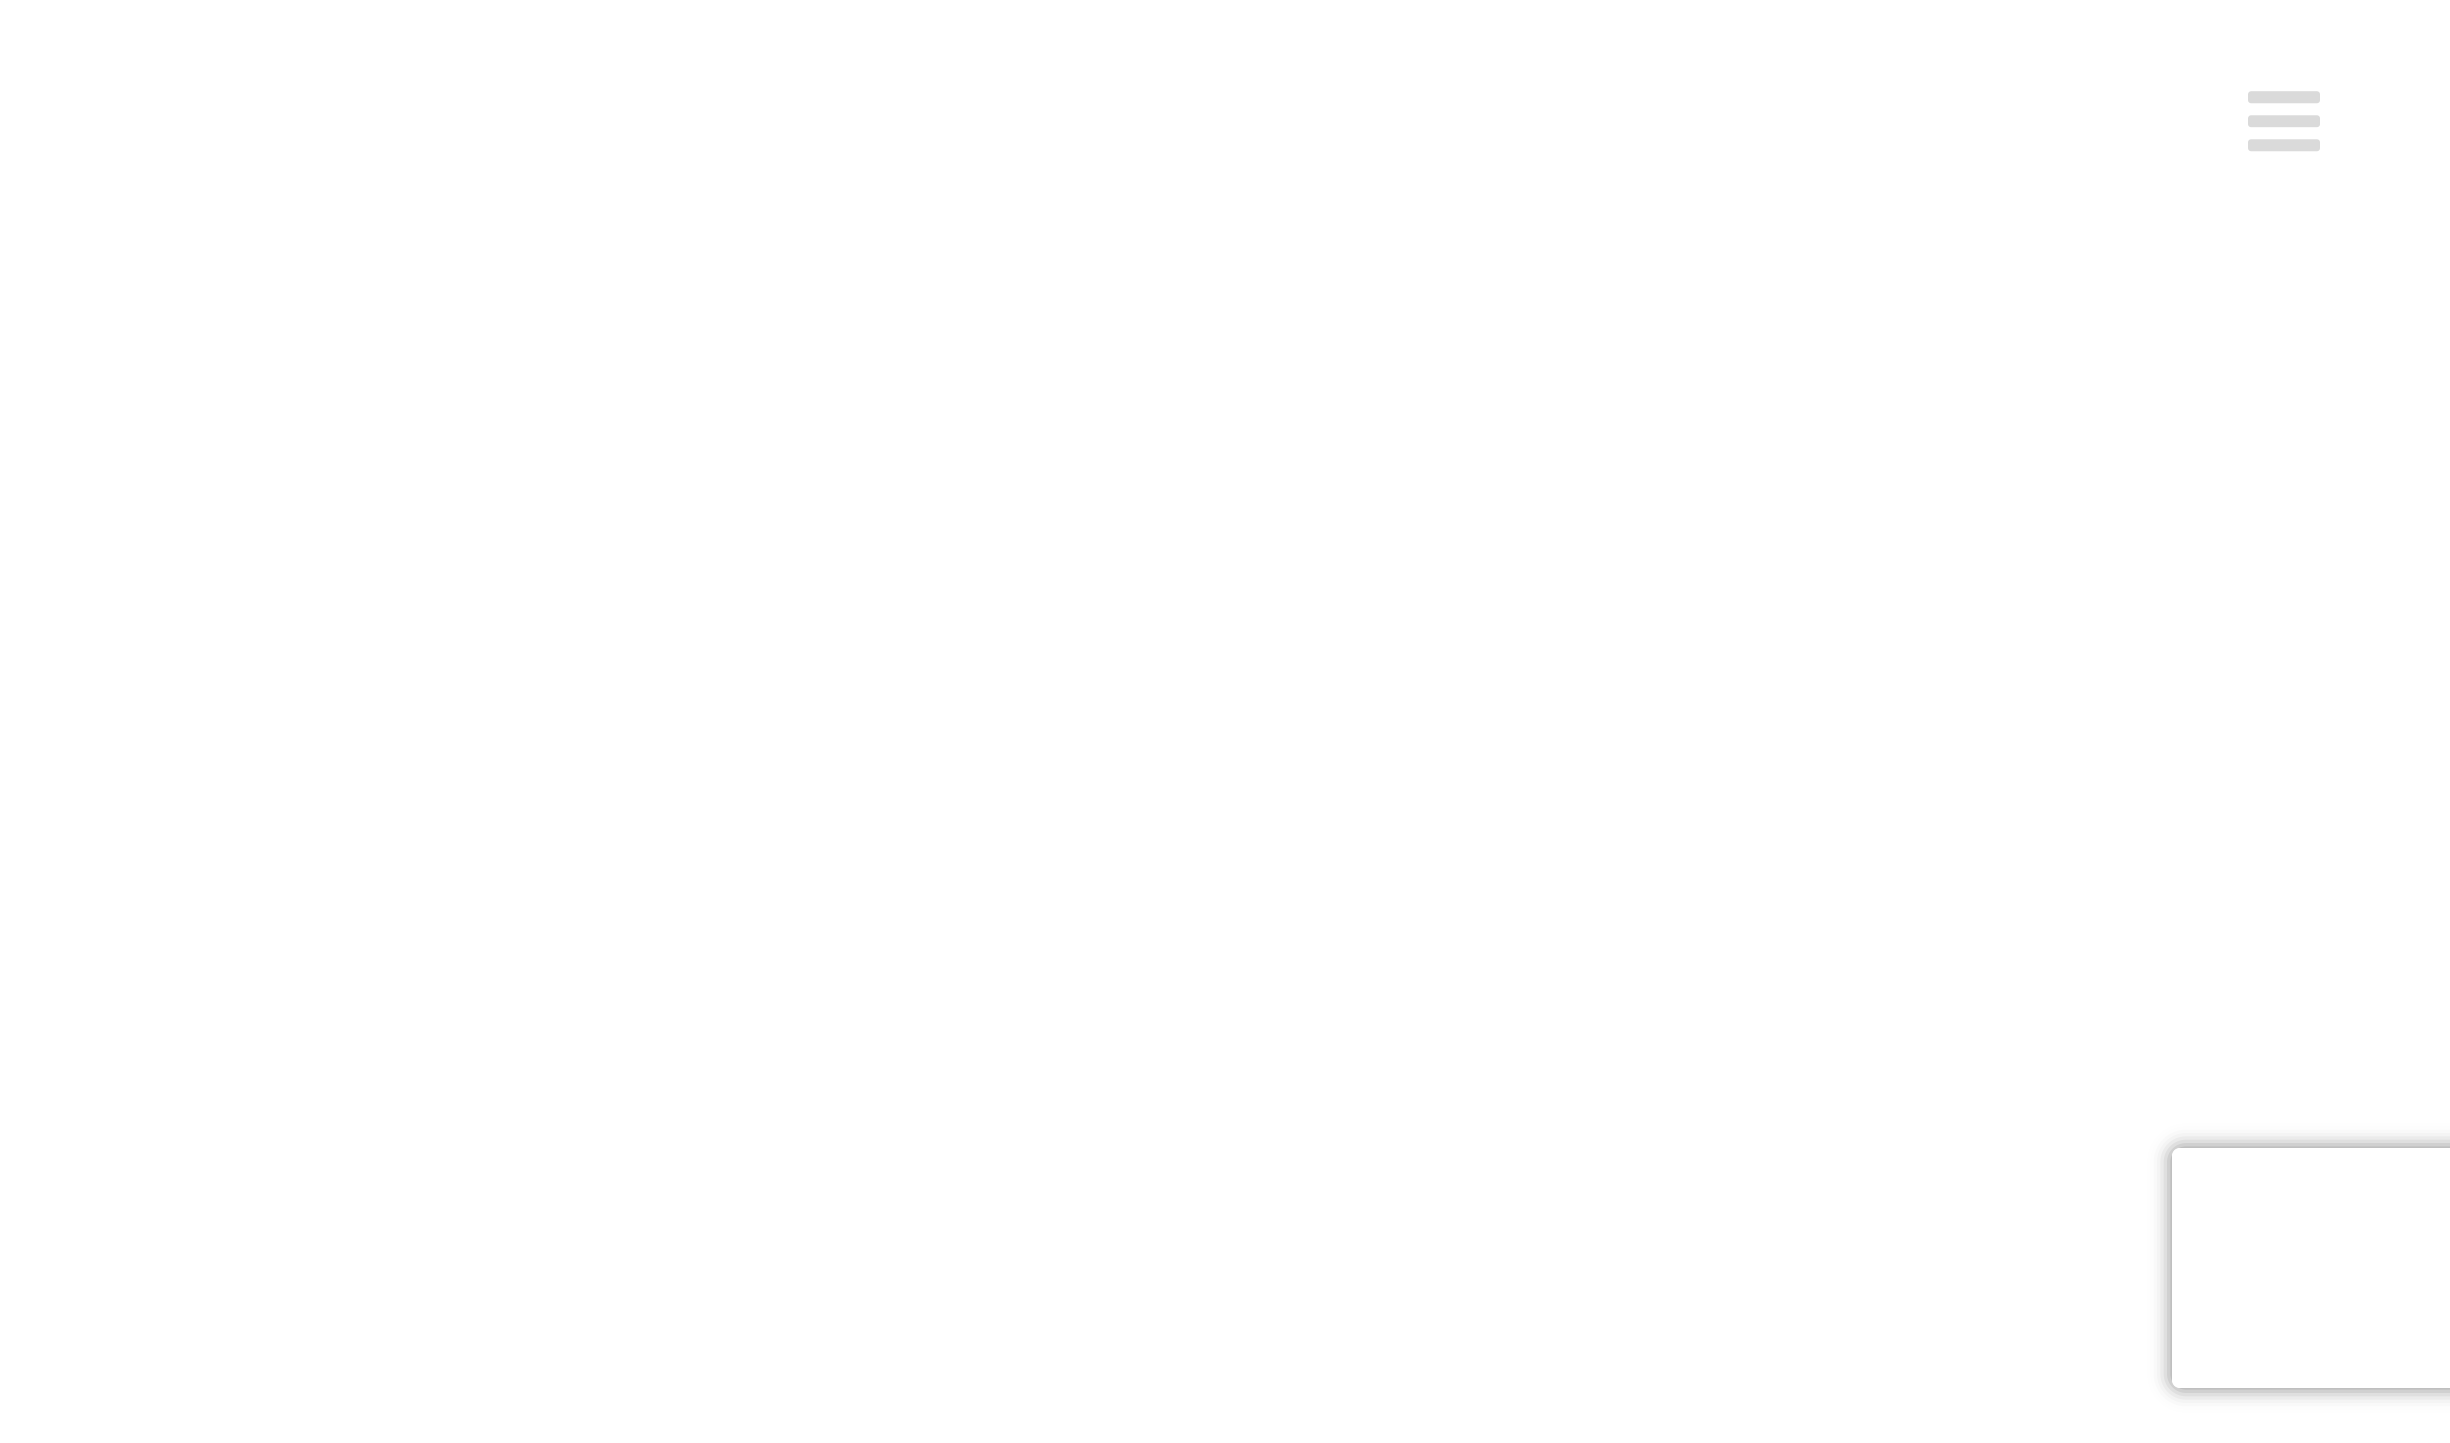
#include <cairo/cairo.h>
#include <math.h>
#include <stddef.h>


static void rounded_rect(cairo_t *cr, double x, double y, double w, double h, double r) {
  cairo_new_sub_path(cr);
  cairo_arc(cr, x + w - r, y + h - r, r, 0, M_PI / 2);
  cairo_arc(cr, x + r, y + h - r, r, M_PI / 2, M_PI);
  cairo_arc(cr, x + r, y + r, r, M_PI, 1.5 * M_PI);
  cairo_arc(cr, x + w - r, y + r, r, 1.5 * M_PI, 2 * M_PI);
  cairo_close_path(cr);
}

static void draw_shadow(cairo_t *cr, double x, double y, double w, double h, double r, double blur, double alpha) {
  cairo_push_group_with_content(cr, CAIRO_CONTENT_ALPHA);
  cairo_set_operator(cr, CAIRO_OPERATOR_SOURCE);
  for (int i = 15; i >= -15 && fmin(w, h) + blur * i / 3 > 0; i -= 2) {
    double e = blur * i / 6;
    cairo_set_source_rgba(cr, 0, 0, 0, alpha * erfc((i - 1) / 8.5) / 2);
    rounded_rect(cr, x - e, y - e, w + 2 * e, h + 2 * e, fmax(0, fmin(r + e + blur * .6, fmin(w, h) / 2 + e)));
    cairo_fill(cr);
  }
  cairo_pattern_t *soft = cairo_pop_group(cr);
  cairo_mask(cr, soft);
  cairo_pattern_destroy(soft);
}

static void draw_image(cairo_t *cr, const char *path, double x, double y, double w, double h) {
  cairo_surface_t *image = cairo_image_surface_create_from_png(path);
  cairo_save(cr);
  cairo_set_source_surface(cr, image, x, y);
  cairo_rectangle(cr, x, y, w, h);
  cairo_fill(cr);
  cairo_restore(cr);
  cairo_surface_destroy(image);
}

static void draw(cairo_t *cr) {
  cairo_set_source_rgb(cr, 1, 1, 1);
  cairo_paint(cr);
  draw_image(cr, "images/1.png", 2248, 91, 72, 61);
  cairo_save(cr);
  cairo_set_fill_rule(cr, CAIRO_FILL_RULE_EVEN_ODD);
  cairo_new_path(cr);
  cairo_move_to(cr, 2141, 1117);
  cairo_line_to(cr, 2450, 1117);
  cairo_line_to(cr, 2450, 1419);
  cairo_line_to(cr, 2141, 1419);
  cairo_close_path(cr);
  cairo_move_to(cr, 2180, 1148);
  cairo_line_to(cr, 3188, 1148);
  cairo_curve_to(cr, 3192.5, 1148, 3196, 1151.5, 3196, 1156);
  cairo_line_to(cr, 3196, 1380);
  cairo_curve_to(cr, 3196, 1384.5, 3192.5, 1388, 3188, 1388);
  cairo_line_to(cr, 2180, 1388);
  cairo_curve_to(cr, 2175.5, 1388, 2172, 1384.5, 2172, 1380);
  cairo_line_to(cr, 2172, 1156);
  cairo_curve_to(cr, 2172, 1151.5, 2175.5, 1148, 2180, 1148);
  cairo_close_path(cr);
  cairo_clip(cr);
  cairo_set_source_rgb(cr, 128 / 255.0, 128 / 255.0, 128 / 255.0);
  draw_shadow(cr, 2172, 1148, 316, 240, 8, 10, 1);
  cairo_restore(cr);
}

int main(void) {
  cairo_surface_t *surface = cairo_image_surface_create(CAIRO_FORMAT_RGB24, 2450, 1443);
  cairo_t *cr = cairo_create(surface);
  cairo_font_options_t *options = cairo_font_options_create();
  cairo_font_options_set_hint_metrics(options, CAIRO_HINT_METRICS_OFF);
  cairo_font_options_set_hint_style(options, CAIRO_HINT_STYLE_NONE);
  cairo_set_font_options(cr, options);
  cairo_set_miter_limit(cr, 4);
  draw(cr);
  cairo_surface_write_to_png(surface, "out.png");
  cairo_font_options_destroy(options);
  cairo_destroy(cr);
  cairo_surface_destroy(surface);
  return 0;
}
